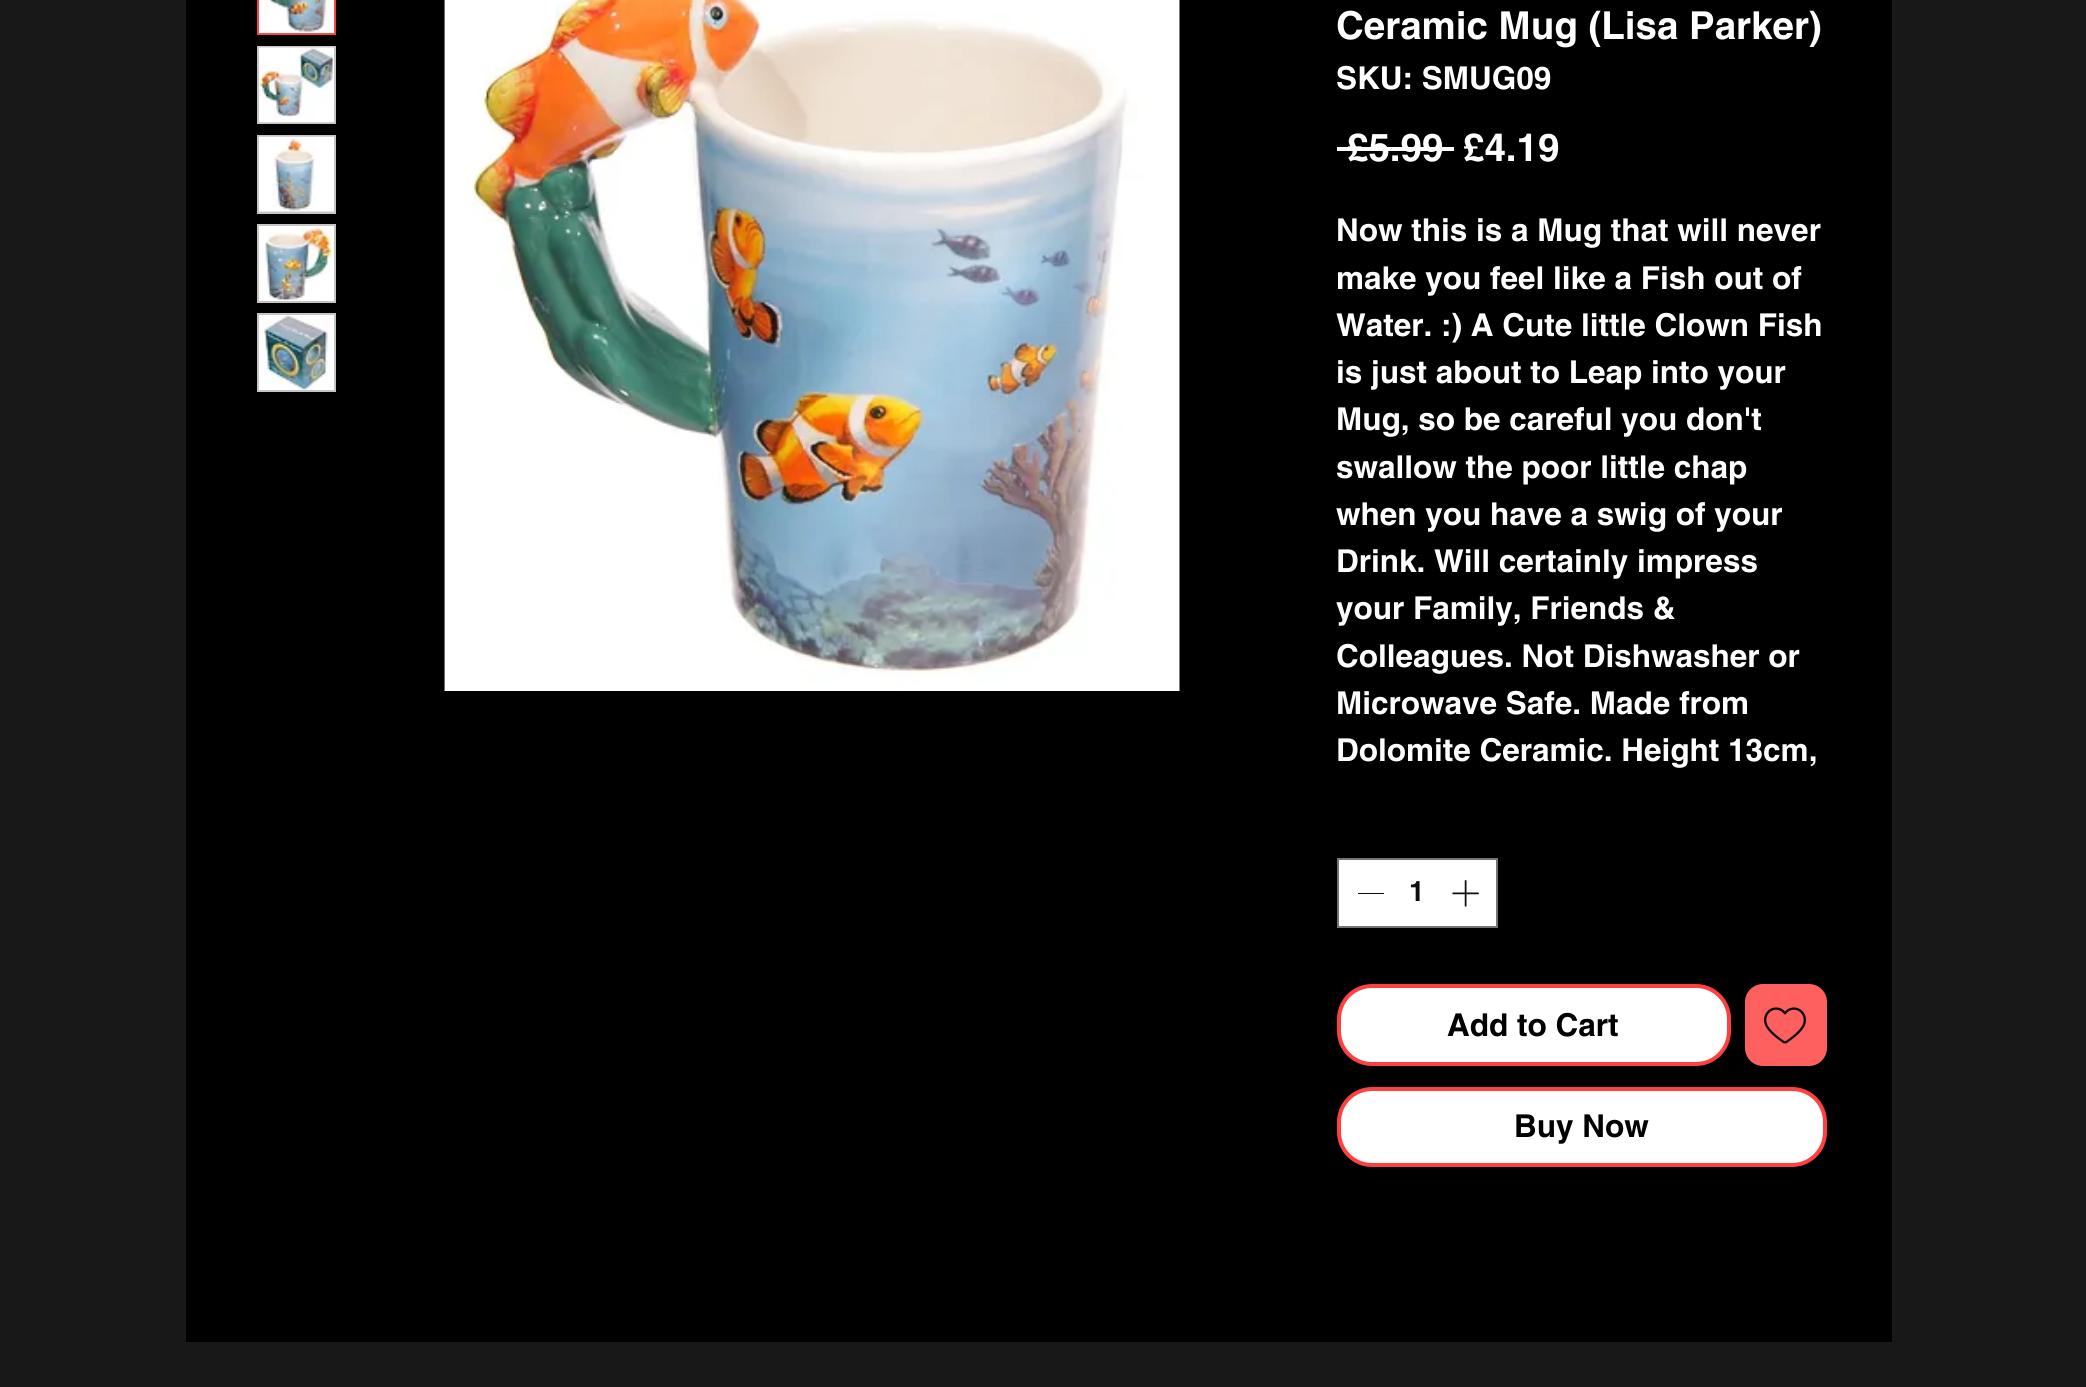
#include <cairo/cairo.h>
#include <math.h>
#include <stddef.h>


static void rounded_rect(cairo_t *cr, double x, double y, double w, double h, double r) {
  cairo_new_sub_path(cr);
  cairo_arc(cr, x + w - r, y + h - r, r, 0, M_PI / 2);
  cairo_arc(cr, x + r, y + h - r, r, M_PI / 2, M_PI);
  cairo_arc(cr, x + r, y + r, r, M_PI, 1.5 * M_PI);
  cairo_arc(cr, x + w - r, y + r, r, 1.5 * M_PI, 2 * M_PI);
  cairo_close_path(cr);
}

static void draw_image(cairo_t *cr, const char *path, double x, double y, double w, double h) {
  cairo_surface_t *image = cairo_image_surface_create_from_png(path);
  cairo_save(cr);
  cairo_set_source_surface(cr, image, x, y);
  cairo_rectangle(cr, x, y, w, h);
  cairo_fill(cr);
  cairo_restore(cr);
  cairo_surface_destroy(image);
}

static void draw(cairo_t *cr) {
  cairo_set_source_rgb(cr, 24 / 255.0, 24 / 255.0, 24 / 255.0);
  cairo_paint(cr);
  cairo_set_source_rgb(cr, 0, 0, 0);
  cairo_rectangle(cr, 186, 0, 1706, 1342);
  cairo_fill(cr);
  cairo_rectangle(cr, 258, -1, 77, 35);
  cairo_set_source_rgb(cr, 1, 64 / 255.0, 64 / 255.0);
  cairo_stroke(cr);
  draw_image(cr, "images/1.png", 259, 0, 76, 34);
  cairo_set_source_rgb(cr, 197 / 255.0, 197 / 255.0, 197 / 255.0);
  cairo_rectangle(cr, 257, 46, 79, 78);
  cairo_fill(cr);
  draw_image(cr, "images/2.png", 259, 47, 75, 76);
  cairo_rectangle(cr, 257, 135, 79, 79);
  cairo_fill(cr);
  draw_image(cr, "images/3.png", 259, 136, 75, 76);
  cairo_rectangle(cr, 257, 224, 79, 79);
  cairo_fill(cr);
  draw_image(cr, "images/4.png", 259, 226, 75, 75);
  cairo_rectangle(cr, 257, 313, 79, 79);
  cairo_fill(cr);
  draw_image(cr, "images/5.png", 259, 315, 75, 75);
  draw_image(cr, "images/6.png", 444, 0, 736, 691);
  cairo_set_source_rgb(cr, 1, 1, 1);
  cairo_rectangle(cr, 1337, 147, 117, 4);
  cairo_fill(cr);
  cairo_rectangle(cr, 1338, 859, 159, 68);
  cairo_fill_preserve(cr);
  cairo_set_source_rgb(cr, 116 / 255.0, 116 / 255.0, 116 / 255.0);
  cairo_stroke(cr);
  cairo_set_source_rgb(cr, 13 / 255.0, 13 / 255.0, 13 / 255.0);
  cairo_rectangle(cr, 1358, 893, 26, 1);
  cairo_fill(cr);
  draw_image(cr, "images/7.png", 1452, 880, 27, 27);
  cairo_set_source_rgb(cr, 1, 1, 1);
  rounded_rect(cr, 1339, 986, 390, 78, 33);
  cairo_fill_preserve(cr);
  cairo_set_source_rgb(cr, 1, 64 / 255.0, 64 / 255.0);
  cairo_set_line_width(cr, 4);
  cairo_stroke(cr);
  cairo_set_source_rgb(cr, 254 / 255.0, 96 / 255.0, 96 / 255.0);
  rounded_rect(cr, 1745, 984, 82, 82, 18);
  cairo_fill(cr);
  draw_image(cr, "images/8.png", 1764, 1007, 42, 37);
  cairo_set_source_rgb(cr, 1, 1, 1);
  rounded_rect(cr, 1339, 1089, 486, 76, 33);
  cairo_fill_preserve(cr);
  cairo_set_source_rgb(cr, 1, 64 / 255.0, 64 / 255.0);
  cairo_stroke(cr);
  cairo_select_font_face(cr, "helvetica", CAIRO_FONT_SLANT_NORMAL, CAIRO_FONT_WEIGHT_BOLD);
  cairo_set_font_size(cr, 38.5);
  cairo_set_source_rgb(cr, 1, 1, 1);
  cairo_move_to(cr, 1336, 39);
  cairo_show_text(cr, "Ceramic Mug (Lisa Parker)");
  cairo_set_font_size(cr, 31.5);
  cairo_move_to(cr, 1336, 89);
  cairo_show_text(cr, "SKU: SMUG09");
  cairo_set_font_size(cr, 38.5);
  cairo_move_to(cr, 1347, 161);
  cairo_show_text(cr, "£5.99");
  cairo_move_to(cr, 1463, 161);
  cairo_show_text(cr, "£4.19");
  cairo_set_font_size(cr, 31.5);
  cairo_move_to(cr, 1336, 241);
  cairo_show_text(cr, "Now this is a Mug that will never");
  cairo_move_to(cr, 1336, 289);
  cairo_show_text(cr, "make you feel like a Fish out of");
  cairo_move_to(cr, 1336, 336);
  cairo_show_text(cr, "Water. :) A Cute little Clown Fish");
  cairo_move_to(cr, 1336, 383);
  cairo_show_text(cr, "is just about to Leap into your");
  cairo_move_to(cr, 1336, 430);
  cairo_show_text(cr, "Mug, so be careful you don't");
  cairo_move_to(cr, 1336, 478);
  cairo_show_text(cr, "swallow the poor little chap");
  cairo_move_to(cr, 1336, 525);
  cairo_show_text(cr, "when you have a swig of your");
  cairo_move_to(cr, 1336, 572);
  cairo_show_text(cr, "Drink. Will certainly impress");
  cairo_move_to(cr, 1336, 619);
  cairo_show_text(cr, "your Family, Friends &");
  cairo_move_to(cr, 1336, 667);
  cairo_show_text(cr, "Colleagues. Not Dishwasher or");
  cairo_move_to(cr, 1336, 714);
  cairo_show_text(cr, "Microwave Safe. Made from");
  cairo_move_to(cr, 1336, 761);
  cairo_show_text(cr, "Dolomite Ceramic. Height 13cm,");
  cairo_set_font_size(cr, 28);
  cairo_set_source_rgb(cr, 13 / 255.0, 13 / 255.0, 13 / 255.0);
  cairo_move_to(cr, 1409, 901);
  cairo_show_text(cr, "1");
  cairo_set_font_size(cr, 31.5);
  cairo_set_source_rgb(cr, 0, 0, 0);
  cairo_move_to(cr, 1447, 1036);
  cairo_show_text(cr, "Add to Cart");
  cairo_move_to(cr, 1514, 1137);
  cairo_show_text(cr, "Buy Now");
}

int main(void) {
  cairo_surface_t *surface = cairo_image_surface_create(CAIRO_FORMAT_RGB24, 2086, 1387);
  cairo_t *cr = cairo_create(surface);
  cairo_font_options_t *options = cairo_font_options_create();
  cairo_font_options_set_hint_metrics(options, CAIRO_HINT_METRICS_OFF);
  cairo_font_options_set_hint_style(options, CAIRO_HINT_STYLE_NONE);
  cairo_set_font_options(cr, options);
  cairo_set_miter_limit(cr, 4);
  draw(cr);
  cairo_surface_write_to_png(surface, "out.png");
  cairo_font_options_destroy(options);
  cairo_destroy(cr);
  cairo_surface_destroy(surface);
  return 0;
}
